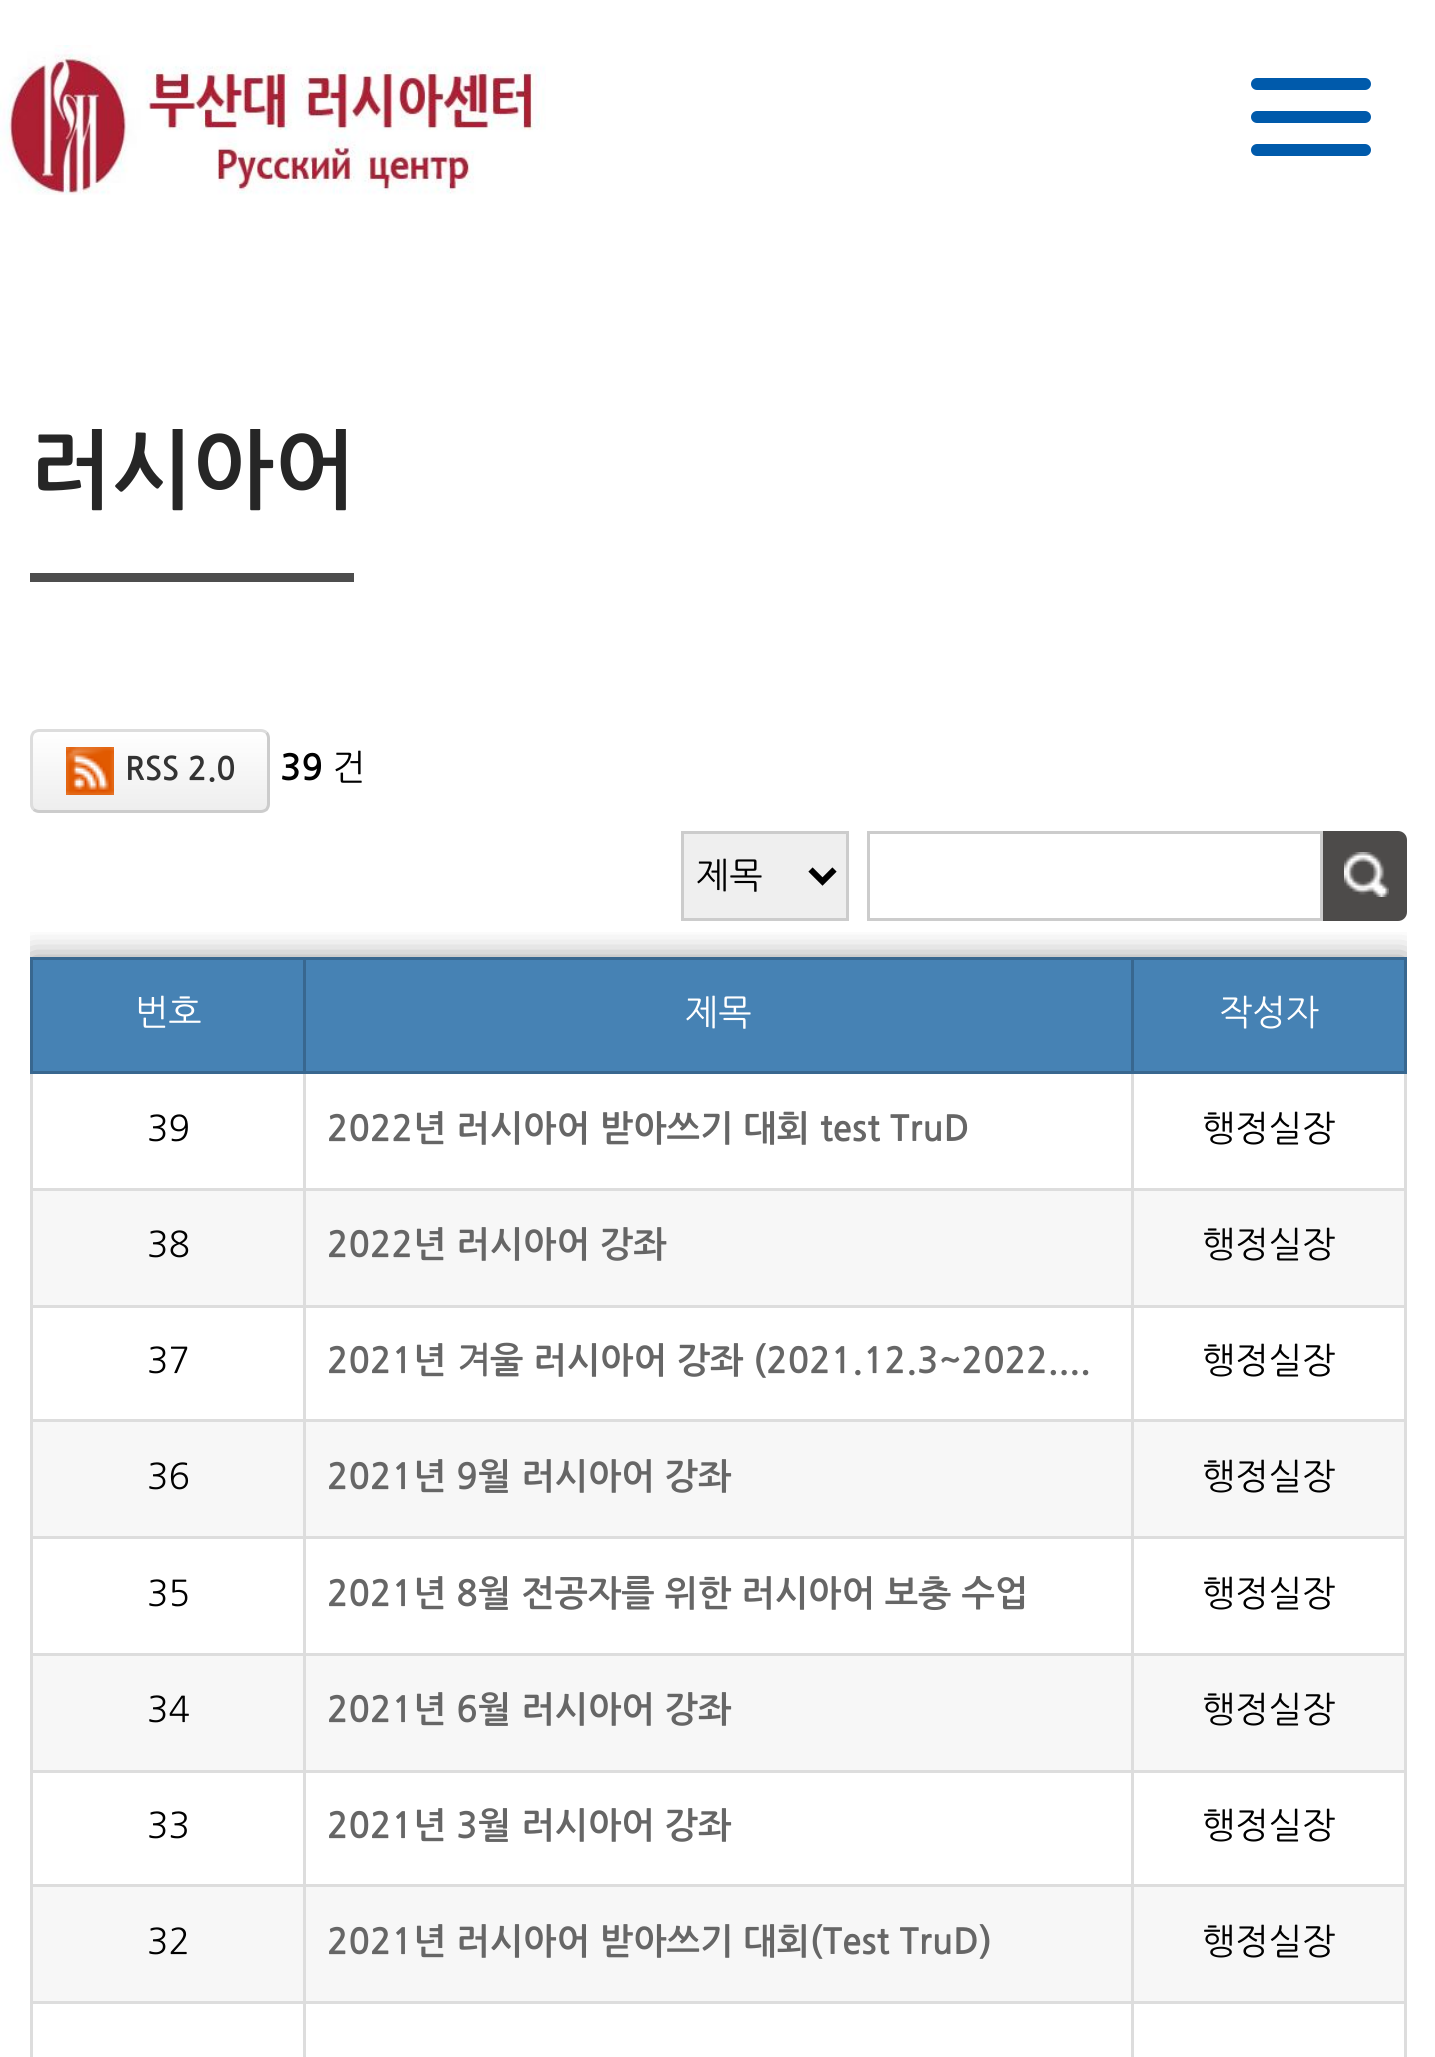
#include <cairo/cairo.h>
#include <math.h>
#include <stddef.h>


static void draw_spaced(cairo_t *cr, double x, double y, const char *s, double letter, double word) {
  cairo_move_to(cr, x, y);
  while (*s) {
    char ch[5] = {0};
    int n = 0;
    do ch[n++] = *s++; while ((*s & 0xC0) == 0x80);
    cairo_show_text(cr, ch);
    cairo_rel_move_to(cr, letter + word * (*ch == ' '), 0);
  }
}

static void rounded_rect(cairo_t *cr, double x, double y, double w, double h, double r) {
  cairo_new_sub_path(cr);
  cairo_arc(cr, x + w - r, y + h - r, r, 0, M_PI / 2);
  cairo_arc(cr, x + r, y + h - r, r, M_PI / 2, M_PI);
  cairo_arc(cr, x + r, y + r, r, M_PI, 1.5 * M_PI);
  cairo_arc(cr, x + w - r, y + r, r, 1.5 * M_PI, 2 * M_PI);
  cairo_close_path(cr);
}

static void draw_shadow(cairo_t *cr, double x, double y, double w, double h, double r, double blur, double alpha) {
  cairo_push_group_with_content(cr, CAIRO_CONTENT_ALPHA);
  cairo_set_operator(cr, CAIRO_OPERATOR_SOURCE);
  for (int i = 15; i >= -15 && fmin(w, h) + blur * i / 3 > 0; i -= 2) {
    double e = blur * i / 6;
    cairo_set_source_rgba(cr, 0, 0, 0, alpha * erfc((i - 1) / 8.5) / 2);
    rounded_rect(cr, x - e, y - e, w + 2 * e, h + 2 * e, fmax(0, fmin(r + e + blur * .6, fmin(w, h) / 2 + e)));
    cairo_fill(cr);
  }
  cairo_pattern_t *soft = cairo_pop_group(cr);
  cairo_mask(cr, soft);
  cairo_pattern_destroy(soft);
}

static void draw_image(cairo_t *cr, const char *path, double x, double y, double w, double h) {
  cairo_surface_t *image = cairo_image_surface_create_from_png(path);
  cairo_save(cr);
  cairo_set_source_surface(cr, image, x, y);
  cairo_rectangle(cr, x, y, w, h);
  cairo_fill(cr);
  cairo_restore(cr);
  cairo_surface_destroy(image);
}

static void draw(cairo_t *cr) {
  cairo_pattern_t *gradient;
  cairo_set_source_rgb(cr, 1, 1, 1);
  cairo_paint(cr);
  draw_image(cr, "images/1.png", 0, 45, 546, 150);
  cairo_set_source_rgb(cr, 0, 90 / 255.0, 171 / 255.0);
  rounded_rect(cr, 1251, 78, 120, 12, 6);
  cairo_fill(cr);
  rounded_rect(cr, 1251, 111, 120, 12, 6);
  cairo_fill(cr);
  rounded_rect(cr, 1251, 144, 120, 12, 6);
  cairo_fill(cr);
  cairo_set_source_rgb(cr, 77 / 255.0, 77 / 255.0, 77 / 255.0);
  cairo_rectangle(cr, 30, 573, 324, 9);
  cairo_fill(cr);
  cairo_save(cr);
  rounded_rect(cr, 30, 729, 240, 84, 9);
  cairo_clip(cr);
  gradient = cairo_pattern_create_linear(150, 732, 150, 810);
  cairo_pattern_add_color_stop_rgba(gradient, 0, 1, 1, 1, 1);
  cairo_pattern_add_color_stop_rgba(gradient, 1, 238 / 255.0, 238 / 255.0, 238 / 255.0, 1);
  cairo_set_source(cr, gradient);
  cairo_pattern_destroy(gradient);
  cairo_rectangle(cr, 30, 732, 240, 78);
  cairo_fill(cr);
  cairo_restore(cr);
  cairo_new_path(cr);
  cairo_move_to(cr, 266.5, 732.5);
  cairo_curve_to(cr, 267.5, 734, 268.5, 736, 268.5, 738);
  cairo_line_to(cr, 268.5, 804);
  cairo_curve_to(cr, 268.5, 806, 267.5, 808, 266.5, 809.5);
  cairo_curve_to(cr, 265, 810.5, 263, 811.5, 261, 811.5);
  cairo_line_to(cr, 39, 811.5);
  cairo_curve_to(cr, 37, 811.5, 35, 810.5, 33.5, 809.5);
  cairo_set_source_rgb(cr, 204 / 255.0, 204 / 255.0, 204 / 255.0);
  cairo_set_line_width(cr, 3);
  cairo_stroke(cr);
  cairo_new_path(cr);
  cairo_move_to(cr, 33.5, 809.5);
  cairo_curve_to(cr, 32.5, 808, 31.5, 806, 31.5, 804);
  cairo_line_to(cr, 31.5, 738);
  cairo_curve_to(cr, 31.5, 736, 32.5, 734, 33.5, 732.5);
  cairo_curve_to(cr, 35, 731.5, 37, 730.5, 39, 730.5);
  cairo_line_to(cr, 261, 730.5);
  cairo_curve_to(cr, 263, 730.5, 265, 731.5, 266.5, 732.5);
  cairo_set_source_rgb(cr, 221 / 255.0, 221 / 255.0, 221 / 255.0);
  cairo_stroke(cr);
  draw_image(cr, "images/2.png", 66, 747, 48, 48);
  cairo_save(cr);
  cairo_rectangle(cr, 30, 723, 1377, 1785);
  cairo_clip(cr);
  cairo_rectangle(cr, 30, 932, 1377, 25);
  cairo_clip(cr);
  cairo_set_source_rgb(cr, 0, 0, 0);
  draw_shadow(cr, 30, 957, 1377, 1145, 0, 15, 0.4);
  cairo_restore(cr);
  cairo_set_source_rgb(cr, 239 / 255.0, 239 / 255.0, 239 / 255.0);
  cairo_rectangle(cr, 682.5, 832.5, 165, 87);
  cairo_fill_preserve(cr);
  cairo_set_source_rgb(cr, 204 / 255.0, 204 / 255.0, 204 / 255.0);
  cairo_stroke(cr);
  cairo_new_path(cr);
  cairo_move_to(cr, 810.5, 869.5);
  cairo_line_to(cr, 822.5, 881.5);
  cairo_line_to(cr, 834.5, 869.5);
  cairo_set_source_rgb(cr, 0, 0, 0);
  cairo_set_line_width(cr, 6);
  cairo_stroke(cr);
  cairo_rectangle(cr, 868.5, 832.5, 453, 87);
  cairo_set_source_rgb(cr, 204 / 255.0, 204 / 255.0, 204 / 255.0);
  cairo_set_line_width(cr, 3);
  cairo_stroke(cr);
  cairo_set_source_rgb(cr, 77 / 255.0, 75 / 255.0, 74 / 255.0);
  cairo_new_path(cr);
  cairo_move_to(cr, 1323, 831);
  cairo_line_to(cr, 1398, 831);
  cairo_curve_to(cr, 1403, 831, 1407, 835, 1407, 840);
  cairo_line_to(cr, 1407, 912);
  cairo_curve_to(cr, 1407, 917, 1403, 921, 1398, 921);
  cairo_line_to(cr, 1323, 921);
  cairo_close_path(cr);
  cairo_fill(cr);
  draw_image(cr, "images/3.png", 1344, 852, 45, 45);
  cairo_set_source_rgb(cr, 221 / 255.0, 221 / 255.0, 221 / 255.0);
  cairo_rectangle(cr, 30, 1074, 3, 983);
  cairo_fill(cr);
  cairo_set_source_rgb(cr, 70 / 255.0, 130 / 255.0, 180 / 255.0);
  cairo_rectangle(cr, 33, 960, 270, 111);
  cairo_fill(cr);
  cairo_set_source_rgb(cr, 56 / 255.0, 103 / 255.0, 143 / 255.0);
  cairo_rectangle(cr, 1131, 957, 276, 3);
  cairo_fill(cr);
  cairo_set_source_rgb(cr, 221 / 255.0, 221 / 255.0, 221 / 255.0);
  cairo_rectangle(cr, 1404, 1071, 3, 986);
  cairo_fill(cr);
  cairo_set_source_rgb(cr, 56 / 255.0, 103 / 255.0, 143 / 255.0);
  cairo_rectangle(cr, 1404, 957, 3, 117);
  cairo_fill(cr);
  cairo_set_source_rgb(cr, 247 / 255.0, 247 / 255.0, 247 / 255.0);
  cairo_rectangle(cr, 33, 1191, 1371, 114);
  cairo_fill(cr);
  cairo_rectangle(cr, 33, 1422, 1371, 114);
  cairo_fill(cr);
  cairo_rectangle(cr, 33, 1656, 1371, 114);
  cairo_fill(cr);
  cairo_set_source_rgb(cr, 221 / 255.0, 221 / 255.0, 221 / 255.0);
  cairo_rectangle(cr, 1131, 2001, 3, 56);
  cairo_fill(cr);
  cairo_set_source_rgb(cr, 247 / 255.0, 247 / 255.0, 247 / 255.0);
  cairo_rectangle(cr, 33, 1887, 1371, 114);
  cairo_fill(cr);
  cairo_set_source_rgb(cr, 221 / 255.0, 221 / 255.0, 221 / 255.0);
  cairo_rectangle(cr, 1131, 2001, 276, 3);
  cairo_fill(cr);
  cairo_rectangle(cr, 1131, 1884, 3, 120);
  cairo_fill(cr);
  cairo_rectangle(cr, 1131, 1884, 276, 3);
  cairo_fill(cr);
  cairo_rectangle(cr, 1131, 1770, 3, 117);
  cairo_fill(cr);
  cairo_rectangle(cr, 1131, 1770, 276, 3);
  cairo_fill(cr);
  cairo_rectangle(cr, 1131, 1653, 3, 120);
  cairo_fill(cr);
  cairo_rectangle(cr, 1131, 1653, 276, 3);
  cairo_fill(cr);
  cairo_rectangle(cr, 1131, 1536, 3, 120);
  cairo_fill(cr);
  cairo_rectangle(cr, 1131, 1536, 276, 3);
  cairo_fill(cr);
  cairo_rectangle(cr, 1131, 1419, 3, 120);
  cairo_fill(cr);
  cairo_rectangle(cr, 1131, 1419, 276, 3);
  cairo_fill(cr);
  cairo_rectangle(cr, 1131, 1305, 3, 117);
  cairo_fill(cr);
  cairo_rectangle(cr, 1131, 1305, 276, 3);
  cairo_fill(cr);
  cairo_rectangle(cr, 1131, 1188, 3, 120);
  cairo_fill(cr);
  cairo_rectangle(cr, 1131, 1188, 276, 3);
  cairo_fill(cr);
  cairo_rectangle(cr, 1131, 1071, 3, 120);
  cairo_fill(cr);
  cairo_set_source_rgb(cr, 56 / 255.0, 103 / 255.0, 143 / 255.0);
  cairo_rectangle(cr, 1131, 1071, 276, 3);
  cairo_fill(cr);
  cairo_rectangle(cr, 1131, 957, 3, 117);
  cairo_fill(cr);
  cairo_rectangle(cr, 303, 957, 831, 3);
  cairo_fill(cr);
  cairo_set_source_rgb(cr, 221 / 255.0, 221 / 255.0, 221 / 255.0);
  cairo_rectangle(cr, 303, 2001, 3, 56);
  cairo_fill(cr);
  cairo_rectangle(cr, 303, 2001, 831, 3);
  cairo_fill(cr);
  cairo_rectangle(cr, 303, 1884, 3, 120);
  cairo_fill(cr);
  cairo_rectangle(cr, 303, 1884, 831, 3);
  cairo_fill(cr);
  cairo_rectangle(cr, 303, 1770, 3, 117);
  cairo_fill(cr);
  cairo_rectangle(cr, 303, 1770, 831, 3);
  cairo_fill(cr);
  cairo_rectangle(cr, 303, 1653, 3, 120);
  cairo_fill(cr);
  cairo_rectangle(cr, 303, 1653, 831, 3);
  cairo_fill(cr);
  cairo_rectangle(cr, 303, 1536, 3, 120);
  cairo_fill(cr);
  cairo_rectangle(cr, 303, 1536, 831, 3);
  cairo_fill(cr);
  cairo_rectangle(cr, 303, 1419, 3, 120);
  cairo_fill(cr);
  cairo_rectangle(cr, 303, 1419, 831, 3);
  cairo_fill(cr);
  cairo_rectangle(cr, 303, 1305, 3, 117);
  cairo_fill(cr);
  cairo_rectangle(cr, 303, 1305, 831, 3);
  cairo_fill(cr);
  cairo_rectangle(cr, 303, 1188, 3, 120);
  cairo_fill(cr);
  cairo_rectangle(cr, 303, 1188, 831, 3);
  cairo_fill(cr);
  cairo_rectangle(cr, 303, 1071, 3, 120);
  cairo_fill(cr);
  cairo_set_source_rgb(cr, 56 / 255.0, 103 / 255.0, 143 / 255.0);
  cairo_rectangle(cr, 303, 1071, 831, 3);
  cairo_fill(cr);
  cairo_rectangle(cr, 303, 957, 3, 117);
  cairo_fill(cr);
  cairo_rectangle(cr, 30, 957, 276, 3);
  cairo_fill(cr);
  cairo_rectangle(cr, 30, 1071, 276, 3);
  cairo_fill(cr);
  cairo_rectangle(cr, 30, 957, 3, 117);
  cairo_fill(cr);
  cairo_set_source_rgb(cr, 70 / 255.0, 130 / 255.0, 180 / 255.0);
  cairo_rectangle(cr, 306, 960, 825, 111);
  cairo_fill(cr);
  cairo_rectangle(cr, 1134, 960, 270, 111);
  cairo_fill(cr);
  cairo_set_source_rgb(cr, 221 / 255.0, 221 / 255.0, 221 / 255.0);
  cairo_rectangle(cr, 30, 1188, 276, 3);
  cairo_fill(cr);
  cairo_rectangle(cr, 30, 1305, 276, 3);
  cairo_fill(cr);
  cairo_rectangle(cr, 30, 1419, 276, 3);
  cairo_fill(cr);
  cairo_rectangle(cr, 30, 1536, 276, 3);
  cairo_fill(cr);
  cairo_rectangle(cr, 30, 1653, 276, 3);
  cairo_fill(cr);
  cairo_rectangle(cr, 30, 1770, 276, 3);
  cairo_fill(cr);
  cairo_rectangle(cr, 30, 1884, 276, 3);
  cairo_fill(cr);
  cairo_rectangle(cr, 30, 2001, 276, 3);
  cairo_fill(cr);
  cairo_save(cr);
  cairo_rectangle(cr, 30, 429, 1377, 204);
  cairo_clip(cr);
  cairo_select_font_face(cr, "NanumGothic", CAIRO_FONT_SLANT_NORMAL, CAIRO_FONT_WEIGHT_BOLD);
  cairo_set_font_size(cr, 86.5);
  cairo_set_source_rgb(cr, 38 / 255.0, 38 / 255.0, 38 / 255.0);
  cairo_move_to(cr, 30, 501);
  cairo_show_text(cr, "러시아어");
  cairo_restore(cr);
  cairo_select_font_face(cr, "NanumGothic", CAIRO_FONT_SLANT_NORMAL, CAIRO_FONT_WEIGHT_BOLD);
  cairo_set_font_size(cr, 32);
  cairo_set_source_rgb(cr, 51 / 255.0, 51 / 255.0, 51 / 255.0);
  draw_spaced(cr, 125, 780, "RSS 2.0", -0.25, 0);
  cairo_set_font_size(cr, 35.5);
  cairo_set_source_rgb(cr, 0, 0, 0);
  cairo_move_to(cr, 280, 780);
  cairo_show_text(cr, "39");
  cairo_select_font_face(cr, "NanumGothic", CAIRO_FONT_SLANT_NORMAL, CAIRO_FONT_WEIGHT_NORMAL);
  cairo_move_to(cr, 332, 780);
  cairo_show_text(cr, "건");
  cairo_move_to(cr, 696, 888);
  cairo_show_text(cr, "제목");
  cairo_set_source_rgb(cr, 1, 1, 1);
  cairo_move_to(cr, 135, 1025);
  cairo_show_text(cr, "번호");
  cairo_move_to(cr, 685, 1025);
  cairo_show_text(cr, "제목");
  cairo_move_to(cr, 1219, 1025);
  cairo_show_text(cr, "작성자");
  cairo_set_source_rgb(cr, 0, 0, 0);
  cairo_move_to(cr, 147, 1141);
  cairo_show_text(cr, "39");
  cairo_select_font_face(cr, "NanumGothic", CAIRO_FONT_SLANT_NORMAL, CAIRO_FONT_WEIGHT_BOLD);
  cairo_set_source_rgb(cr, 102 / 255.0, 102 / 255.0, 102 / 255.0);
  cairo_move_to(cr, 327, 1141);
  cairo_show_text(cr, "2022년 러시아어 받아쓰기 대회 test TruD");
  cairo_select_font_face(cr, "NanumGothic", CAIRO_FONT_SLANT_NORMAL, CAIRO_FONT_WEIGHT_NORMAL);
  cairo_set_source_rgb(cr, 0, 0, 0);
  cairo_move_to(cr, 1202, 1141);
  cairo_show_text(cr, "행정실장");
  cairo_move_to(cr, 147, 1257);
  cairo_show_text(cr, "38");
  cairo_select_font_face(cr, "NanumGothic", CAIRO_FONT_SLANT_NORMAL, CAIRO_FONT_WEIGHT_BOLD);
  cairo_set_source_rgb(cr, 102 / 255.0, 102 / 255.0, 102 / 255.0);
  cairo_move_to(cr, 327, 1257);
  cairo_show_text(cr, "2022년 러시아어 강좌");
  cairo_select_font_face(cr, "NanumGothic", CAIRO_FONT_SLANT_NORMAL, CAIRO_FONT_WEIGHT_NORMAL);
  cairo_set_source_rgb(cr, 0, 0, 0);
  cairo_move_to(cr, 1202, 1257);
  cairo_show_text(cr, "행정실장");
  cairo_move_to(cr, 147, 1373);
  cairo_show_text(cr, "37");
  cairo_select_font_face(cr, "NanumGothic", CAIRO_FONT_SLANT_NORMAL, CAIRO_FONT_WEIGHT_BOLD);
  cairo_set_source_rgb(cr, 102 / 255.0, 102 / 255.0, 102 / 255.0);
  cairo_move_to(cr, 327, 1373);
  cairo_show_text(cr, "2021년");
  cairo_select_font_face(cr, "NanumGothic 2", CAIRO_FONT_SLANT_NORMAL, CAIRO_FONT_WEIGHT_BOLD);
  cairo_move_to(cr, 457, 1373);
  cairo_show_text(cr, "겨");
  cairo_select_font_face(cr, "NanumGothic", CAIRO_FONT_SLANT_NORMAL, CAIRO_FONT_WEIGHT_BOLD);
  cairo_move_to(cr, 490, 1373);
  cairo_show_text(cr, "울 러시아어 강좌 (2021.12.3~2022....");
  cairo_select_font_face(cr, "NanumGothic", CAIRO_FONT_SLANT_NORMAL, CAIRO_FONT_WEIGHT_NORMAL);
  cairo_set_source_rgb(cr, 0, 0, 0);
  cairo_move_to(cr, 1202, 1373);
  cairo_show_text(cr, "행정실장");
  cairo_move_to(cr, 147, 1489);
  cairo_show_text(cr, "36");
  cairo_select_font_face(cr, "NanumGothic", CAIRO_FONT_SLANT_NORMAL, CAIRO_FONT_WEIGHT_BOLD);
  cairo_set_source_rgb(cr, 102 / 255.0, 102 / 255.0, 102 / 255.0);
  cairo_move_to(cr, 327, 1489);
  cairo_show_text(cr, "2021년 9월 러시아어 강좌");
  cairo_select_font_face(cr, "NanumGothic", CAIRO_FONT_SLANT_NORMAL, CAIRO_FONT_WEIGHT_NORMAL);
  cairo_set_source_rgb(cr, 0, 0, 0);
  cairo_move_to(cr, 1202, 1489);
  cairo_show_text(cr, "행정실장");
  cairo_move_to(cr, 147, 1606);
  cairo_show_text(cr, "35");
  cairo_select_font_face(cr, "NanumGothic", CAIRO_FONT_SLANT_NORMAL, CAIRO_FONT_WEIGHT_BOLD);
  cairo_set_source_rgb(cr, 102 / 255.0, 102 / 255.0, 102 / 255.0);
  cairo_move_to(cr, 327, 1606);
  cairo_show_text(cr, "2021년 8월 전공자를 위한 러시아어 보충 수업");
  cairo_select_font_face(cr, "NanumGothic", CAIRO_FONT_SLANT_NORMAL, CAIRO_FONT_WEIGHT_NORMAL);
  cairo_set_source_rgb(cr, 0, 0, 0);
  cairo_move_to(cr, 1202, 1606);
  cairo_show_text(cr, "행정실장");
  cairo_move_to(cr, 147, 1722);
  cairo_show_text(cr, "34");
  cairo_select_font_face(cr, "NanumGothic", CAIRO_FONT_SLANT_NORMAL, CAIRO_FONT_WEIGHT_BOLD);
  cairo_set_source_rgb(cr, 102 / 255.0, 102 / 255.0, 102 / 255.0);
  cairo_move_to(cr, 327, 1722);
  cairo_show_text(cr, "2021년 6월 러시아어 강좌");
  cairo_select_font_face(cr, "NanumGothic", CAIRO_FONT_SLANT_NORMAL, CAIRO_FONT_WEIGHT_NORMAL);
  cairo_set_source_rgb(cr, 0, 0, 0);
  cairo_move_to(cr, 1202, 1722);
  cairo_show_text(cr, "행정실장");
  cairo_move_to(cr, 147, 1838);
  cairo_show_text(cr, "33");
  cairo_select_font_face(cr, "NanumGothic", CAIRO_FONT_SLANT_NORMAL, CAIRO_FONT_WEIGHT_BOLD);
  cairo_set_source_rgb(cr, 102 / 255.0, 102 / 255.0, 102 / 255.0);
  cairo_move_to(cr, 327, 1838);
  cairo_show_text(cr, "2021년 3월 러시아어 강좌");
  cairo_select_font_face(cr, "NanumGothic", CAIRO_FONT_SLANT_NORMAL, CAIRO_FONT_WEIGHT_NORMAL);
  cairo_set_source_rgb(cr, 0, 0, 0);
  cairo_move_to(cr, 1202, 1838);
  cairo_show_text(cr, "행정실장");
  cairo_move_to(cr, 147, 1954);
  cairo_show_text(cr, "32");
  cairo_select_font_face(cr, "NanumGothic", CAIRO_FONT_SLANT_NORMAL, CAIRO_FONT_WEIGHT_BOLD);
  cairo_set_source_rgb(cr, 102 / 255.0, 102 / 255.0, 102 / 255.0);
  cairo_move_to(cr, 327, 1954);
  cairo_show_text(cr, "2021년 러시아어 받아쓰기 대회(Test TruD)");
  cairo_select_font_face(cr, "NanumGothic", CAIRO_FONT_SLANT_NORMAL, CAIRO_FONT_WEIGHT_NORMAL);
  cairo_set_source_rgb(cr, 0, 0, 0);
  cairo_move_to(cr, 1202, 1954);
  cairo_show_text(cr, "행정실장");
}

int main(void) {
  cairo_surface_t *surface = cairo_image_surface_create(CAIRO_FORMAT_RGB24, 1435, 2057);
  cairo_t *cr = cairo_create(surface);
  cairo_font_options_t *options = cairo_font_options_create();
  cairo_font_options_set_hint_metrics(options, CAIRO_HINT_METRICS_OFF);
  cairo_font_options_set_hint_style(options, CAIRO_HINT_STYLE_NONE);
  cairo_set_font_options(cr, options);
  cairo_set_miter_limit(cr, 4);
  draw(cr);
  cairo_surface_write_to_png(surface, "out.png");
  cairo_font_options_destroy(options);
  cairo_destroy(cr);
  cairo_surface_destroy(surface);
  return 0;
}
